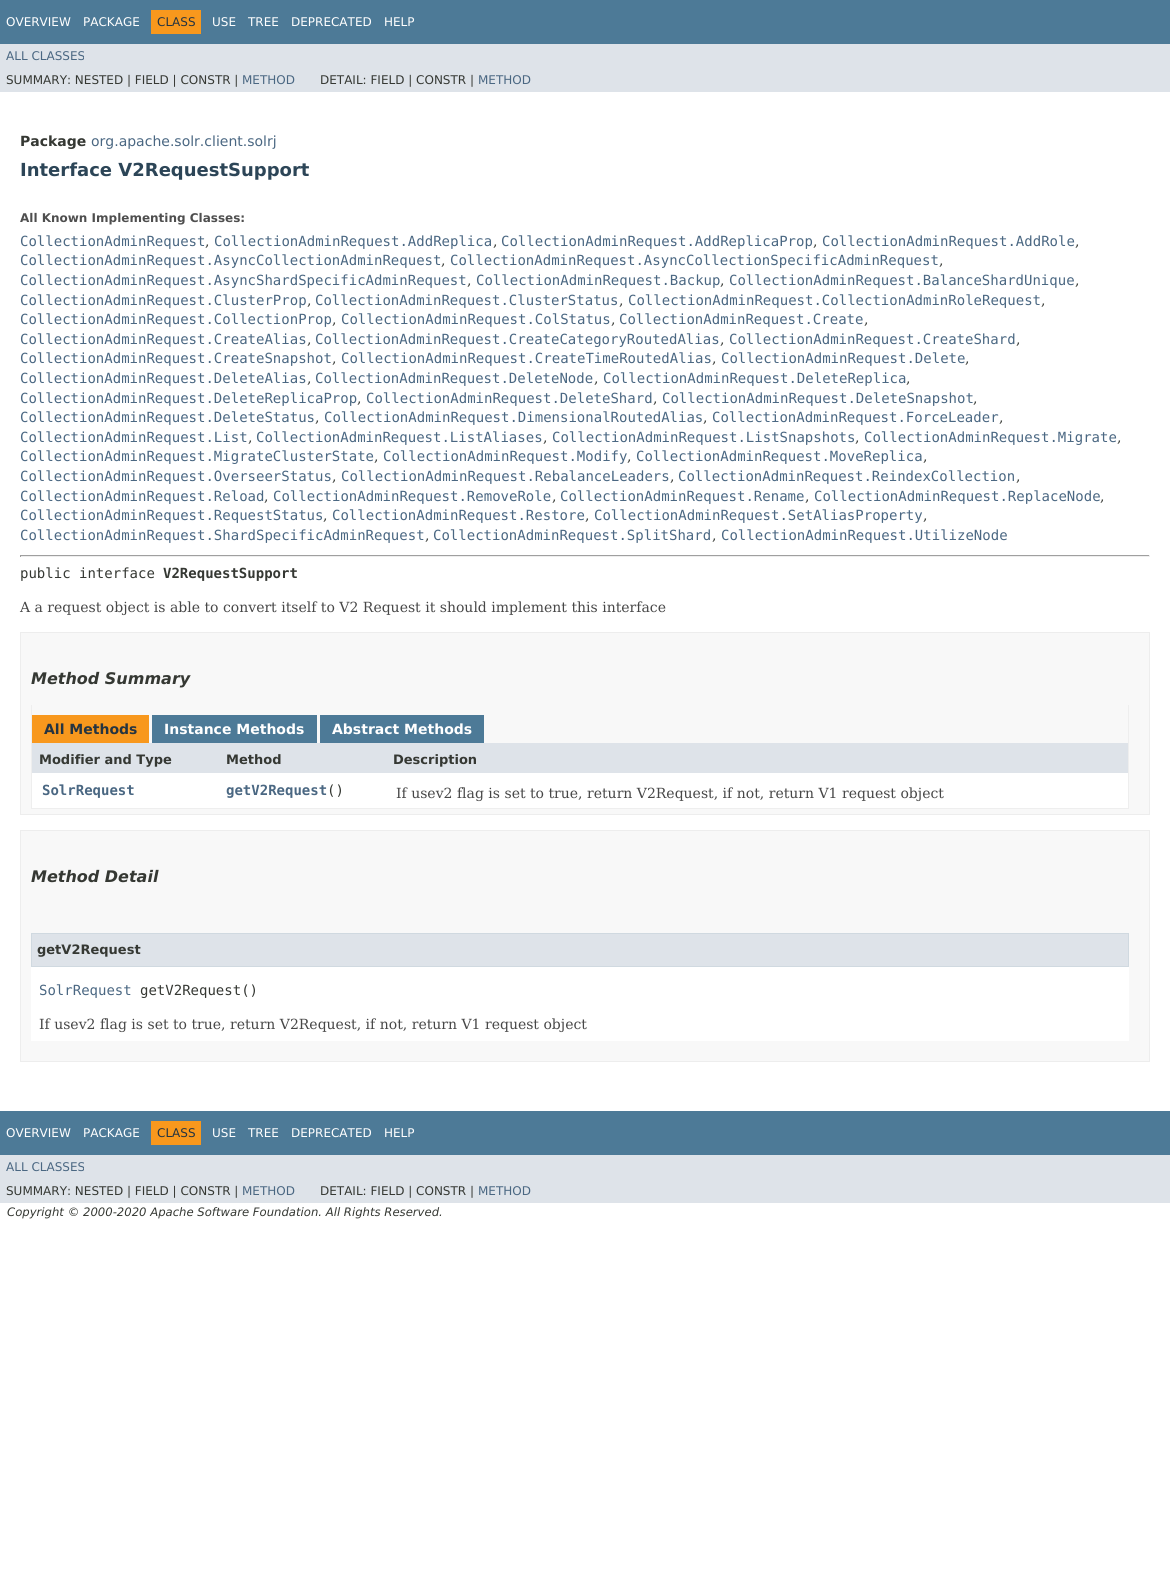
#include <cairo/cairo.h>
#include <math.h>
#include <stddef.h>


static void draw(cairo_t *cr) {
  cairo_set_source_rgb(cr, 1, 1, 1);
  cairo_paint(cr);
  cairo_set_source_rgb(cr, 77 / 255.0, 122 / 255.0, 151 / 255.0);
  cairo_rectangle(cr, 0, 0, 1170, 44);
  cairo_fill(cr);
  cairo_set_source_rgb(cr, 248 / 255.0, 152 / 255.0, 29 / 255.0);
  cairo_rectangle(cr, 151, 10, 50, 24);
  cairo_fill(cr);
  cairo_set_source_rgb(cr, 222 / 255.0, 227 / 255.0, 233 / 255.0);
  cairo_rectangle(cr, 0, 44, 1170, 48);
  cairo_fill(cr);
  cairo_set_source_rgb(cr, 159 / 255.0, 159 / 255.0, 159 / 255.0);
  cairo_rectangle(cr, 20, 555, 1130, 1);
  cairo_fill(cr);
  cairo_set_source_rgb(cr, 238 / 255.0, 238 / 255.0, 238 / 255.0);
  cairo_rectangle(cr, 1149, 555, 1, 2);
  cairo_fill(cr);
  cairo_rectangle(cr, 20, 556, 1130, 1);
  cairo_fill(cr);
  cairo_set_source_rgb(cr, 159 / 255.0, 159 / 255.0, 159 / 255.0);
  cairo_rectangle(cr, 20, 555, 1, 2);
  cairo_fill(cr);
  cairo_set_source_rgb(cr, 248 / 255.0, 248 / 255.0, 248 / 255.0);
  cairo_rectangle(cr, 20.5, 632.5, 1129, 182);
  cairo_fill_preserve(cr);
  cairo_set_source_rgb(cr, 237 / 255.0, 237 / 255.0, 237 / 255.0);
  cairo_set_line_width(cr, 1);
  cairo_stroke(cr);
  cairo_set_source_rgb(cr, 238 / 255.0, 238 / 255.0, 238 / 255.0);
  cairo_rectangle(cr, 1128, 705, 1, 104);
  cairo_fill(cr);
  cairo_rectangle(cr, 31, 808, 1098, 1);
  cairo_fill(cr);
  cairo_rectangle(cr, 31, 705, 1, 104);
  cairo_fill(cr);
  cairo_set_source_rgb(cr, 248 / 255.0, 152 / 255.0, 29 / 255.0);
  cairo_rectangle(cr, 32, 715, 117, 28);
  cairo_fill(cr);
  cairo_set_source_rgb(cr, 77 / 255.0, 122 / 255.0, 151 / 255.0);
  cairo_rectangle(cr, 152, 715, 165, 28);
  cairo_fill(cr);
  cairo_rectangle(cr, 320, 715, 164, 28);
  cairo_fill(cr);
  cairo_set_source_rgb(cr, 222 / 255.0, 227 / 255.0, 233 / 255.0);
  cairo_rectangle(cr, 32, 743, 1096, 30);
  cairo_fill(cr);
  cairo_set_source_rgb(cr, 1, 1, 1);
  cairo_rectangle(cr, 32, 773, 1096, 35);
  cairo_fill(cr);
  cairo_set_source_rgb(cr, 248 / 255.0, 248 / 255.0, 248 / 255.0);
  cairo_rectangle(cr, 20.5, 830.5, 1129, 231);
  cairo_fill_preserve(cr);
  cairo_set_source_rgb(cr, 237 / 255.0, 237 / 255.0, 237 / 255.0);
  cairo_stroke(cr);
  cairo_set_source_rgb(cr, 1, 1, 1);
  cairo_rectangle(cr, 31, 967, 1098, 74);
  cairo_fill(cr);
  cairo_set_source_rgb(cr, 222 / 255.0, 227 / 255.0, 233 / 255.0);
  cairo_rectangle(cr, 31.5, 933.5, 1097, 33);
  cairo_fill_preserve(cr);
  cairo_set_source_rgb(cr, 208 / 255.0, 217 / 255.0, 224 / 255.0);
  cairo_stroke(cr);
  cairo_set_source_rgb(cr, 77 / 255.0, 122 / 255.0, 151 / 255.0);
  cairo_rectangle(cr, 0, 1111, 1170, 44);
  cairo_fill(cr);
  cairo_set_source_rgb(cr, 248 / 255.0, 152 / 255.0, 29 / 255.0);
  cairo_rectangle(cr, 151, 1121, 50, 24);
  cairo_fill(cr);
  cairo_set_source_rgb(cr, 222 / 255.0, 227 / 255.0, 233 / 255.0);
  cairo_rectangle(cr, 0, 1155, 1170, 48);
  cairo_fill(cr);
  cairo_select_font_face(cr, "DejaVu Sans", CAIRO_FONT_SLANT_NORMAL, CAIRO_FONT_WEIGHT_NORMAL);
  cairo_set_font_size(cr, 12);
  cairo_set_source_rgb(cr, 1, 1, 1);
  cairo_move_to(cr, 6, 26);
  cairo_show_text(cr, "OVERVIEW");
  cairo_move_to(cr, 83, 26);
  cairo_show_text(cr, "PACKAGE");
  cairo_set_source_rgb(cr, 37 / 255.0, 52 / 255.0, 65 / 255.0);
  cairo_move_to(cr, 157, 26);
  cairo_show_text(cr, "CLASS");
  cairo_set_source_rgb(cr, 1, 1, 1);
  cairo_move_to(cr, 212, 26);
  cairo_show_text(cr, "USE");
  cairo_move_to(cr, 248, 26);
  cairo_show_text(cr, "TREE");
  cairo_move_to(cr, 291, 26);
  cairo_show_text(cr, "DEPRECATED");
  cairo_move_to(cr, 384, 26);
  cairo_show_text(cr, "HELP");
  cairo_set_source_rgb(cr, 74 / 255.0, 103 / 255.0, 130 / 255.0);
  cairo_move_to(cr, 6, 60);
  cairo_show_text(cr, "ALL CLASSES");
  cairo_set_source_rgb(cr, 53 / 255.0, 56 / 255.0, 51 / 255.0);
  cairo_move_to(cr, 6, 84);
  cairo_show_text(cr, "SUMMARY: NESTED | FIELD | CONSTR |");
  cairo_set_source_rgb(cr, 74 / 255.0, 103 / 255.0, 130 / 255.0);
  cairo_move_to(cr, 242, 84);
  cairo_show_text(cr, "METHOD");
  cairo_set_source_rgb(cr, 53 / 255.0, 56 / 255.0, 51 / 255.0);
  cairo_move_to(cr, 320, 84);
  cairo_show_text(cr, "DETAIL: FIELD | CONSTR |");
  cairo_set_source_rgb(cr, 74 / 255.0, 103 / 255.0, 130 / 255.0);
  cairo_move_to(cr, 478, 84);
  cairo_show_text(cr, "METHOD");
  cairo_select_font_face(cr, "DejaVu Sans", CAIRO_FONT_SLANT_NORMAL, CAIRO_FONT_WEIGHT_BOLD);
  cairo_set_font_size(cr, 14);
  cairo_set_source_rgb(cr, 53 / 255.0, 56 / 255.0, 51 / 255.0);
  cairo_move_to(cr, 20, 146);
  cairo_show_text(cr, "Package");
  cairo_select_font_face(cr, "DejaVu Sans", CAIRO_FONT_SLANT_NORMAL, CAIRO_FONT_WEIGHT_NORMAL);
  cairo_set_source_rgb(cr, 74 / 255.0, 103 / 255.0, 130 / 255.0);
  cairo_move_to(cr, 91, 146);
  cairo_show_text(cr, "org.apache.solr.client.solrj");
  cairo_select_font_face(cr, "DejaVu Sans", CAIRO_FONT_SLANT_NORMAL, CAIRO_FONT_WEIGHT_BOLD);
  cairo_set_font_size(cr, 18);
  cairo_set_source_rgb(cr, 44 / 255.0, 69 / 255.0, 87 / 255.0);
  cairo_move_to(cr, 20, 176);
  cairo_show_text(cr, "Interface V2RequestSupport");
  cairo_set_font_size(cr, 12);
  cairo_set_source_rgb(cr, 78 / 255.0, 78 / 255.0, 78 / 255.0);
  cairo_move_to(cr, 20, 222);
  cairo_show_text(cr, "All Known Implementing Classes:");
  cairo_select_font_face(cr, "DejaVu Sans Mono", CAIRO_FONT_SLANT_NORMAL, CAIRO_FONT_WEIGHT_NORMAL);
  cairo_set_font_size(cr, 14);
  cairo_set_source_rgb(cr, 74 / 255.0, 103 / 255.0, 130 / 255.0);
  cairo_move_to(cr, 20, 246);
  cairo_show_text(cr, "CollectionAdminRequest");
  cairo_select_font_face(cr, "DejaVu Serif", CAIRO_FONT_SLANT_NORMAL, CAIRO_FONT_WEIGHT_NORMAL);
  cairo_set_source_rgb(cr, 53 / 255.0, 56 / 255.0, 51 / 255.0);
  cairo_move_to(cr, 205, 246);
  cairo_show_text(cr, ",");
  cairo_select_font_face(cr, "DejaVu Sans Mono", CAIRO_FONT_SLANT_NORMAL, CAIRO_FONT_WEIGHT_NORMAL);
  cairo_set_source_rgb(cr, 74 / 255.0, 103 / 255.0, 130 / 255.0);
  cairo_move_to(cr, 214, 246);
  cairo_show_text(cr, "CollectionAdminRequest.AddReplica");
  cairo_select_font_face(cr, "DejaVu Serif", CAIRO_FONT_SLANT_NORMAL, CAIRO_FONT_WEIGHT_NORMAL);
  cairo_set_source_rgb(cr, 53 / 255.0, 56 / 255.0, 51 / 255.0);
  cairo_move_to(cr, 493, 246);
  cairo_show_text(cr, ",");
  cairo_select_font_face(cr, "DejaVu Sans Mono", CAIRO_FONT_SLANT_NORMAL, CAIRO_FONT_WEIGHT_NORMAL);
  cairo_set_source_rgb(cr, 74 / 255.0, 103 / 255.0, 130 / 255.0);
  cairo_move_to(cr, 501, 246);
  cairo_show_text(cr, "CollectionAdminRequest.AddReplicaProp");
  cairo_select_font_face(cr, "DejaVu Serif", CAIRO_FONT_SLANT_NORMAL, CAIRO_FONT_WEIGHT_NORMAL);
  cairo_set_source_rgb(cr, 53 / 255.0, 56 / 255.0, 51 / 255.0);
  cairo_move_to(cr, 813, 246);
  cairo_show_text(cr, ",");
  cairo_select_font_face(cr, "DejaVu Sans Mono", CAIRO_FONT_SLANT_NORMAL, CAIRO_FONT_WEIGHT_NORMAL);
  cairo_set_source_rgb(cr, 74 / 255.0, 103 / 255.0, 130 / 255.0);
  cairo_move_to(cr, 822, 246);
  cairo_show_text(cr, "CollectionAdminRequest.AddRole");
  cairo_select_font_face(cr, "DejaVu Serif", CAIRO_FONT_SLANT_NORMAL, CAIRO_FONT_WEIGHT_NORMAL);
  cairo_set_source_rgb(cr, 53 / 255.0, 56 / 255.0, 51 / 255.0);
  cairo_move_to(cr, 1075, 246);
  cairo_show_text(cr, ",");
  cairo_select_font_face(cr, "DejaVu Sans Mono", CAIRO_FONT_SLANT_NORMAL, CAIRO_FONT_WEIGHT_NORMAL);
  cairo_set_source_rgb(cr, 74 / 255.0, 103 / 255.0, 130 / 255.0);
  cairo_move_to(cr, 20, 265);
  cairo_show_text(cr, "CollectionAdminRequest.AsyncCollectionAdminRequest");
  cairo_select_font_face(cr, "DejaVu Serif", CAIRO_FONT_SLANT_NORMAL, CAIRO_FONT_WEIGHT_NORMAL);
  cairo_set_source_rgb(cr, 53 / 255.0, 56 / 255.0, 51 / 255.0);
  cairo_move_to(cr, 441, 265);
  cairo_show_text(cr, ",");
  cairo_select_font_face(cr, "DejaVu Sans Mono", CAIRO_FONT_SLANT_NORMAL, CAIRO_FONT_WEIGHT_NORMAL);
  cairo_set_source_rgb(cr, 74 / 255.0, 103 / 255.0, 130 / 255.0);
  cairo_move_to(cr, 450, 265);
  cairo_show_text(cr, "CollectionAdminRequest.AsyncCollectionSpecificAdminRequest");
  cairo_select_font_face(cr, "DejaVu Serif", CAIRO_FONT_SLANT_NORMAL, CAIRO_FONT_WEIGHT_NORMAL);
  cairo_set_source_rgb(cr, 53 / 255.0, 56 / 255.0, 51 / 255.0);
  cairo_move_to(cr, 939, 265);
  cairo_show_text(cr, ",");
  cairo_select_font_face(cr, "DejaVu Sans Mono", CAIRO_FONT_SLANT_NORMAL, CAIRO_FONT_WEIGHT_NORMAL);
  cairo_set_source_rgb(cr, 74 / 255.0, 103 / 255.0, 130 / 255.0);
  cairo_move_to(cr, 20, 285);
  cairo_show_text(cr, "CollectionAdminRequest.AsyncShardSpecificAdminRequest");
  cairo_select_font_face(cr, "DejaVu Serif", CAIRO_FONT_SLANT_NORMAL, CAIRO_FONT_WEIGHT_NORMAL);
  cairo_set_source_rgb(cr, 53 / 255.0, 56 / 255.0, 51 / 255.0);
  cairo_move_to(cr, 467, 285);
  cairo_show_text(cr, ",");
  cairo_select_font_face(cr, "DejaVu Sans Mono", CAIRO_FONT_SLANT_NORMAL, CAIRO_FONT_WEIGHT_NORMAL);
  cairo_set_source_rgb(cr, 74 / 255.0, 103 / 255.0, 130 / 255.0);
  cairo_move_to(cr, 476, 285);
  cairo_show_text(cr, "CollectionAdminRequest.Backup");
  cairo_select_font_face(cr, "DejaVu Serif", CAIRO_FONT_SLANT_NORMAL, CAIRO_FONT_WEIGHT_NORMAL);
  cairo_set_source_rgb(cr, 53 / 255.0, 56 / 255.0, 51 / 255.0);
  cairo_move_to(cr, 720, 285);
  cairo_show_text(cr, ",");
  cairo_select_font_face(cr, "DejaVu Sans Mono", CAIRO_FONT_SLANT_NORMAL, CAIRO_FONT_WEIGHT_NORMAL);
  cairo_set_source_rgb(cr, 74 / 255.0, 103 / 255.0, 130 / 255.0);
  cairo_move_to(cr, 729, 285);
  cairo_show_text(cr, "CollectionAdminRequest.BalanceShardUnique");
  cairo_select_font_face(cr, "DejaVu Serif", CAIRO_FONT_SLANT_NORMAL, CAIRO_FONT_WEIGHT_NORMAL);
  cairo_set_source_rgb(cr, 53 / 255.0, 56 / 255.0, 51 / 255.0);
  cairo_move_to(cr, 1075, 285);
  cairo_show_text(cr, ",");
  cairo_select_font_face(cr, "DejaVu Sans Mono", CAIRO_FONT_SLANT_NORMAL, CAIRO_FONT_WEIGHT_NORMAL);
  cairo_set_source_rgb(cr, 74 / 255.0, 103 / 255.0, 130 / 255.0);
  cairo_move_to(cr, 20, 305);
  cairo_show_text(cr, "CollectionAdminRequest.ClusterProp");
  cairo_select_font_face(cr, "DejaVu Serif", CAIRO_FONT_SLANT_NORMAL, CAIRO_FONT_WEIGHT_NORMAL);
  cairo_set_source_rgb(cr, 53 / 255.0, 56 / 255.0, 51 / 255.0);
  cairo_move_to(cr, 307, 305);
  cairo_show_text(cr, ",");
  cairo_select_font_face(cr, "DejaVu Sans Mono", CAIRO_FONT_SLANT_NORMAL, CAIRO_FONT_WEIGHT_NORMAL);
  cairo_set_source_rgb(cr, 74 / 255.0, 103 / 255.0, 130 / 255.0);
  cairo_move_to(cr, 315, 305);
  cairo_show_text(cr, "CollectionAdminRequest.ClusterStatus");
  cairo_select_font_face(cr, "DejaVu Serif", CAIRO_FONT_SLANT_NORMAL, CAIRO_FONT_WEIGHT_NORMAL);
  cairo_set_source_rgb(cr, 53 / 255.0, 56 / 255.0, 51 / 255.0);
  cairo_move_to(cr, 619, 305);
  cairo_show_text(cr, ",");
  cairo_select_font_face(cr, "DejaVu Sans Mono", CAIRO_FONT_SLANT_NORMAL, CAIRO_FONT_WEIGHT_NORMAL);
  cairo_set_source_rgb(cr, 74 / 255.0, 103 / 255.0, 130 / 255.0);
  cairo_move_to(cr, 628, 305);
  cairo_show_text(cr, "CollectionAdminRequest.CollectionAdminRoleRequest");
  cairo_select_font_face(cr, "DejaVu Serif", CAIRO_FONT_SLANT_NORMAL, CAIRO_FONT_WEIGHT_NORMAL);
  cairo_set_source_rgb(cr, 53 / 255.0, 56 / 255.0, 51 / 255.0);
  cairo_move_to(cr, 1041, 305);
  cairo_show_text(cr, ",");
  cairo_select_font_face(cr, "DejaVu Sans Mono", CAIRO_FONT_SLANT_NORMAL, CAIRO_FONT_WEIGHT_NORMAL);
  cairo_set_source_rgb(cr, 74 / 255.0, 103 / 255.0, 130 / 255.0);
  cairo_move_to(cr, 20, 324);
  cairo_show_text(cr, "CollectionAdminRequest.CollectionProp");
  cairo_select_font_face(cr, "DejaVu Serif", CAIRO_FONT_SLANT_NORMAL, CAIRO_FONT_WEIGHT_NORMAL);
  cairo_set_source_rgb(cr, 53 / 255.0, 56 / 255.0, 51 / 255.0);
  cairo_move_to(cr, 332, 324);
  cairo_show_text(cr, ",");
  cairo_select_font_face(cr, "DejaVu Sans Mono", CAIRO_FONT_SLANT_NORMAL, CAIRO_FONT_WEIGHT_NORMAL);
  cairo_set_source_rgb(cr, 74 / 255.0, 103 / 255.0, 130 / 255.0);
  cairo_move_to(cr, 341, 324);
  cairo_show_text(cr, "CollectionAdminRequest.ColStatus");
  cairo_select_font_face(cr, "DejaVu Serif", CAIRO_FONT_SLANT_NORMAL, CAIRO_FONT_WEIGHT_NORMAL);
  cairo_set_source_rgb(cr, 53 / 255.0, 56 / 255.0, 51 / 255.0);
  cairo_move_to(cr, 611, 324);
  cairo_show_text(cr, ",");
  cairo_select_font_face(cr, "DejaVu Sans Mono", CAIRO_FONT_SLANT_NORMAL, CAIRO_FONT_WEIGHT_NORMAL);
  cairo_set_source_rgb(cr, 74 / 255.0, 103 / 255.0, 130 / 255.0);
  cairo_move_to(cr, 619, 324);
  cairo_show_text(cr, "CollectionAdminRequest.Create");
  cairo_select_font_face(cr, "DejaVu Serif", CAIRO_FONT_SLANT_NORMAL, CAIRO_FONT_WEIGHT_NORMAL);
  cairo_set_source_rgb(cr, 53 / 255.0, 56 / 255.0, 51 / 255.0);
  cairo_move_to(cr, 864, 324);
  cairo_show_text(cr, ",");
  cairo_select_font_face(cr, "DejaVu Sans Mono", CAIRO_FONT_SLANT_NORMAL, CAIRO_FONT_WEIGHT_NORMAL);
  cairo_set_source_rgb(cr, 74 / 255.0, 103 / 255.0, 130 / 255.0);
  cairo_move_to(cr, 20, 344);
  cairo_show_text(cr, "CollectionAdminRequest.CreateAlias");
  cairo_select_font_face(cr, "DejaVu Serif", CAIRO_FONT_SLANT_NORMAL, CAIRO_FONT_WEIGHT_NORMAL);
  cairo_set_source_rgb(cr, 53 / 255.0, 56 / 255.0, 51 / 255.0);
  cairo_move_to(cr, 307, 344);
  cairo_show_text(cr, ",");
  cairo_select_font_face(cr, "DejaVu Sans Mono", CAIRO_FONT_SLANT_NORMAL, CAIRO_FONT_WEIGHT_NORMAL);
  cairo_set_source_rgb(cr, 74 / 255.0, 103 / 255.0, 130 / 255.0);
  cairo_move_to(cr, 315, 344);
  cairo_show_text(cr, "CollectionAdminRequest.CreateCategoryRoutedAlias");
  cairo_select_font_face(cr, "DejaVu Serif", CAIRO_FONT_SLANT_NORMAL, CAIRO_FONT_WEIGHT_NORMAL);
  cairo_set_source_rgb(cr, 53 / 255.0, 56 / 255.0, 51 / 255.0);
  cairo_move_to(cr, 720, 344);
  cairo_show_text(cr, ",");
  cairo_select_font_face(cr, "DejaVu Sans Mono", CAIRO_FONT_SLANT_NORMAL, CAIRO_FONT_WEIGHT_NORMAL);
  cairo_set_source_rgb(cr, 74 / 255.0, 103 / 255.0, 130 / 255.0);
  cairo_move_to(cr, 729, 344);
  cairo_show_text(cr, "CollectionAdminRequest.CreateShard");
  cairo_select_font_face(cr, "DejaVu Serif", CAIRO_FONT_SLANT_NORMAL, CAIRO_FONT_WEIGHT_NORMAL);
  cairo_set_source_rgb(cr, 53 / 255.0, 56 / 255.0, 51 / 255.0);
  cairo_move_to(cr, 1016, 344);
  cairo_show_text(cr, ",");
  cairo_select_font_face(cr, "DejaVu Sans Mono", CAIRO_FONT_SLANT_NORMAL, CAIRO_FONT_WEIGHT_NORMAL);
  cairo_set_source_rgb(cr, 74 / 255.0, 103 / 255.0, 130 / 255.0);
  cairo_move_to(cr, 20, 363);
  cairo_show_text(cr, "CollectionAdminRequest.CreateSnapshot");
  cairo_select_font_face(cr, "DejaVu Serif", CAIRO_FONT_SLANT_NORMAL, CAIRO_FONT_WEIGHT_NORMAL);
  cairo_set_source_rgb(cr, 53 / 255.0, 56 / 255.0, 51 / 255.0);
  cairo_move_to(cr, 332, 363);
  cairo_show_text(cr, ",");
  cairo_select_font_face(cr, "DejaVu Sans Mono", CAIRO_FONT_SLANT_NORMAL, CAIRO_FONT_WEIGHT_NORMAL);
  cairo_set_source_rgb(cr, 74 / 255.0, 103 / 255.0, 130 / 255.0);
  cairo_move_to(cr, 341, 363);
  cairo_show_text(cr, "CollectionAdminRequest.CreateTimeRoutedAlias");
  cairo_select_font_face(cr, "DejaVu Serif", CAIRO_FONT_SLANT_NORMAL, CAIRO_FONT_WEIGHT_NORMAL);
  cairo_set_source_rgb(cr, 53 / 255.0, 56 / 255.0, 51 / 255.0);
  cairo_move_to(cr, 712, 363);
  cairo_show_text(cr, ",");
  cairo_select_font_face(cr, "DejaVu Sans Mono", CAIRO_FONT_SLANT_NORMAL, CAIRO_FONT_WEIGHT_NORMAL);
  cairo_set_source_rgb(cr, 74 / 255.0, 103 / 255.0, 130 / 255.0);
  cairo_move_to(cr, 721, 363);
  cairo_show_text(cr, "CollectionAdminRequest.Delete");
  cairo_select_font_face(cr, "DejaVu Serif", CAIRO_FONT_SLANT_NORMAL, CAIRO_FONT_WEIGHT_NORMAL);
  cairo_set_source_rgb(cr, 53 / 255.0, 56 / 255.0, 51 / 255.0);
  cairo_move_to(cr, 965, 363);
  cairo_show_text(cr, ",");
  cairo_select_font_face(cr, "DejaVu Sans Mono", CAIRO_FONT_SLANT_NORMAL, CAIRO_FONT_WEIGHT_NORMAL);
  cairo_set_source_rgb(cr, 74 / 255.0, 103 / 255.0, 130 / 255.0);
  cairo_move_to(cr, 20, 383);
  cairo_show_text(cr, "CollectionAdminRequest.DeleteAlias");
  cairo_select_font_face(cr, "DejaVu Serif", CAIRO_FONT_SLANT_NORMAL, CAIRO_FONT_WEIGHT_NORMAL);
  cairo_set_source_rgb(cr, 53 / 255.0, 56 / 255.0, 51 / 255.0);
  cairo_move_to(cr, 307, 383);
  cairo_show_text(cr, ",");
  cairo_select_font_face(cr, "DejaVu Sans Mono", CAIRO_FONT_SLANT_NORMAL, CAIRO_FONT_WEIGHT_NORMAL);
  cairo_set_source_rgb(cr, 74 / 255.0, 103 / 255.0, 130 / 255.0);
  cairo_move_to(cr, 315, 383);
  cairo_show_text(cr, "CollectionAdminRequest.DeleteNode");
  cairo_select_font_face(cr, "DejaVu Serif", CAIRO_FONT_SLANT_NORMAL, CAIRO_FONT_WEIGHT_NORMAL);
  cairo_set_source_rgb(cr, 53 / 255.0, 56 / 255.0, 51 / 255.0);
  cairo_move_to(cr, 594, 383);
  cairo_show_text(cr, ",");
  cairo_select_font_face(cr, "DejaVu Sans Mono", CAIRO_FONT_SLANT_NORMAL, CAIRO_FONT_WEIGHT_NORMAL);
  cairo_set_source_rgb(cr, 74 / 255.0, 103 / 255.0, 130 / 255.0);
  cairo_move_to(cr, 603, 383);
  cairo_show_text(cr, "CollectionAdminRequest.DeleteReplica");
  cairo_select_font_face(cr, "DejaVu Serif", CAIRO_FONT_SLANT_NORMAL, CAIRO_FONT_WEIGHT_NORMAL);
  cairo_set_source_rgb(cr, 53 / 255.0, 56 / 255.0, 51 / 255.0);
  cairo_move_to(cr, 906, 383);
  cairo_show_text(cr, ",");
  cairo_select_font_face(cr, "DejaVu Sans Mono", CAIRO_FONT_SLANT_NORMAL, CAIRO_FONT_WEIGHT_NORMAL);
  cairo_set_source_rgb(cr, 74 / 255.0, 103 / 255.0, 130 / 255.0);
  cairo_move_to(cr, 20, 403);
  cairo_show_text(cr, "CollectionAdminRequest.DeleteReplicaProp");
  cairo_select_font_face(cr, "DejaVu Serif", CAIRO_FONT_SLANT_NORMAL, CAIRO_FONT_WEIGHT_NORMAL);
  cairo_set_source_rgb(cr, 53 / 255.0, 56 / 255.0, 51 / 255.0);
  cairo_move_to(cr, 357, 403);
  cairo_show_text(cr, ",");
  cairo_select_font_face(cr, "DejaVu Sans Mono", CAIRO_FONT_SLANT_NORMAL, CAIRO_FONT_WEIGHT_NORMAL);
  cairo_set_source_rgb(cr, 74 / 255.0, 103 / 255.0, 130 / 255.0);
  cairo_move_to(cr, 366, 403);
  cairo_show_text(cr, "CollectionAdminRequest.DeleteShard");
  cairo_select_font_face(cr, "DejaVu Serif", CAIRO_FONT_SLANT_NORMAL, CAIRO_FONT_WEIGHT_NORMAL);
  cairo_set_source_rgb(cr, 53 / 255.0, 56 / 255.0, 51 / 255.0);
  cairo_move_to(cr, 653, 403);
  cairo_show_text(cr, ",");
  cairo_select_font_face(cr, "DejaVu Sans Mono", CAIRO_FONT_SLANT_NORMAL, CAIRO_FONT_WEIGHT_NORMAL);
  cairo_set_source_rgb(cr, 74 / 255.0, 103 / 255.0, 130 / 255.0);
  cairo_move_to(cr, 662, 403);
  cairo_show_text(cr, "CollectionAdminRequest.DeleteSnapshot");
  cairo_select_font_face(cr, "DejaVu Serif", CAIRO_FONT_SLANT_NORMAL, CAIRO_FONT_WEIGHT_NORMAL);
  cairo_set_source_rgb(cr, 53 / 255.0, 56 / 255.0, 51 / 255.0);
  cairo_move_to(cr, 973, 403);
  cairo_show_text(cr, ",");
  cairo_select_font_face(cr, "DejaVu Sans Mono", CAIRO_FONT_SLANT_NORMAL, CAIRO_FONT_WEIGHT_NORMAL);
  cairo_set_source_rgb(cr, 74 / 255.0, 103 / 255.0, 130 / 255.0);
  cairo_move_to(cr, 20, 422);
  cairo_show_text(cr, "CollectionAdminRequest.DeleteStatus");
  cairo_select_font_face(cr, "DejaVu Serif", CAIRO_FONT_SLANT_NORMAL, CAIRO_FONT_WEIGHT_NORMAL);
  cairo_set_source_rgb(cr, 53 / 255.0, 56 / 255.0, 51 / 255.0);
  cairo_move_to(cr, 315, 422);
  cairo_show_text(cr, ",");
  cairo_select_font_face(cr, "DejaVu Sans Mono", CAIRO_FONT_SLANT_NORMAL, CAIRO_FONT_WEIGHT_NORMAL);
  cairo_set_source_rgb(cr, 74 / 255.0, 103 / 255.0, 130 / 255.0);
  cairo_move_to(cr, 324, 422);
  cairo_show_text(cr, "CollectionAdminRequest.DimensionalRoutedAlias");
  cairo_select_font_face(cr, "DejaVu Serif", CAIRO_FONT_SLANT_NORMAL, CAIRO_FONT_WEIGHT_NORMAL);
  cairo_set_source_rgb(cr, 53 / 255.0, 56 / 255.0, 51 / 255.0);
  cairo_move_to(cr, 703, 422);
  cairo_show_text(cr, ",");
  cairo_select_font_face(cr, "DejaVu Sans Mono", CAIRO_FONT_SLANT_NORMAL, CAIRO_FONT_WEIGHT_NORMAL);
  cairo_set_source_rgb(cr, 74 / 255.0, 103 / 255.0, 130 / 255.0);
  cairo_move_to(cr, 712, 422);
  cairo_show_text(cr, "CollectionAdminRequest.ForceLeader");
  cairo_select_font_face(cr, "DejaVu Serif", CAIRO_FONT_SLANT_NORMAL, CAIRO_FONT_WEIGHT_NORMAL);
  cairo_set_source_rgb(cr, 53 / 255.0, 56 / 255.0, 51 / 255.0);
  cairo_move_to(cr, 999, 422);
  cairo_show_text(cr, ",");
  cairo_select_font_face(cr, "DejaVu Sans Mono", CAIRO_FONT_SLANT_NORMAL, CAIRO_FONT_WEIGHT_NORMAL);
  cairo_set_source_rgb(cr, 74 / 255.0, 103 / 255.0, 130 / 255.0);
  cairo_move_to(cr, 20, 442);
  cairo_show_text(cr, "CollectionAdminRequest.List");
  cairo_select_font_face(cr, "DejaVu Serif", CAIRO_FONT_SLANT_NORMAL, CAIRO_FONT_WEIGHT_NORMAL);
  cairo_set_source_rgb(cr, 53 / 255.0, 56 / 255.0, 51 / 255.0);
  cairo_move_to(cr, 248, 442);
  cairo_show_text(cr, ",");
  cairo_select_font_face(cr, "DejaVu Sans Mono", CAIRO_FONT_SLANT_NORMAL, CAIRO_FONT_WEIGHT_NORMAL);
  cairo_set_source_rgb(cr, 74 / 255.0, 103 / 255.0, 130 / 255.0);
  cairo_move_to(cr, 256, 442);
  cairo_show_text(cr, "CollectionAdminRequest.ListAliases");
  cairo_select_font_face(cr, "DejaVu Serif", CAIRO_FONT_SLANT_NORMAL, CAIRO_FONT_WEIGHT_NORMAL);
  cairo_set_source_rgb(cr, 53 / 255.0, 56 / 255.0, 51 / 255.0);
  cairo_move_to(cr, 543, 442);
  cairo_show_text(cr, ",");
  cairo_select_font_face(cr, "DejaVu Sans Mono", CAIRO_FONT_SLANT_NORMAL, CAIRO_FONT_WEIGHT_NORMAL);
  cairo_set_source_rgb(cr, 74 / 255.0, 103 / 255.0, 130 / 255.0);
  cairo_move_to(cr, 552, 442);
  cairo_show_text(cr, "CollectionAdminRequest.ListSnapshots");
  cairo_select_font_face(cr, "DejaVu Serif", CAIRO_FONT_SLANT_NORMAL, CAIRO_FONT_WEIGHT_NORMAL);
  cairo_set_source_rgb(cr, 53 / 255.0, 56 / 255.0, 51 / 255.0);
  cairo_move_to(cr, 855, 442);
  cairo_show_text(cr, ",");
  cairo_select_font_face(cr, "DejaVu Sans Mono", CAIRO_FONT_SLANT_NORMAL, CAIRO_FONT_WEIGHT_NORMAL);
  cairo_set_source_rgb(cr, 74 / 255.0, 103 / 255.0, 130 / 255.0);
  cairo_move_to(cr, 864, 442);
  cairo_show_text(cr, "CollectionAdminRequest.Migrate");
  cairo_select_font_face(cr, "DejaVu Serif", CAIRO_FONT_SLANT_NORMAL, CAIRO_FONT_WEIGHT_NORMAL);
  cairo_set_source_rgb(cr, 53 / 255.0, 56 / 255.0, 51 / 255.0);
  cairo_move_to(cr, 1117, 442);
  cairo_show_text(cr, ",");
  cairo_select_font_face(cr, "DejaVu Sans Mono", CAIRO_FONT_SLANT_NORMAL, CAIRO_FONT_WEIGHT_NORMAL);
  cairo_set_source_rgb(cr, 74 / 255.0, 103 / 255.0, 130 / 255.0);
  cairo_move_to(cr, 20, 461);
  cairo_show_text(cr, "CollectionAdminRequest.MigrateClusterState");
  cairo_select_font_face(cr, "DejaVu Serif", CAIRO_FONT_SLANT_NORMAL, CAIRO_FONT_WEIGHT_NORMAL);
  cairo_set_source_rgb(cr, 53 / 255.0, 56 / 255.0, 51 / 255.0);
  cairo_move_to(cr, 374, 461);
  cairo_show_text(cr, ",");
  cairo_select_font_face(cr, "DejaVu Sans Mono", CAIRO_FONT_SLANT_NORMAL, CAIRO_FONT_WEIGHT_NORMAL);
  cairo_set_source_rgb(cr, 74 / 255.0, 103 / 255.0, 130 / 255.0);
  cairo_move_to(cr, 383, 461);
  cairo_show_text(cr, "CollectionAdminRequest.Modify");
  cairo_select_font_face(cr, "DejaVu Serif", CAIRO_FONT_SLANT_NORMAL, CAIRO_FONT_WEIGHT_NORMAL);
  cairo_set_source_rgb(cr, 53 / 255.0, 56 / 255.0, 51 / 255.0);
  cairo_move_to(cr, 627, 461);
  cairo_show_text(cr, ",");
  cairo_select_font_face(cr, "DejaVu Sans Mono", CAIRO_FONT_SLANT_NORMAL, CAIRO_FONT_WEIGHT_NORMAL);
  cairo_set_source_rgb(cr, 74 / 255.0, 103 / 255.0, 130 / 255.0);
  cairo_move_to(cr, 636, 461);
  cairo_show_text(cr, "CollectionAdminRequest.MoveReplica");
  cairo_select_font_face(cr, "DejaVu Serif", CAIRO_FONT_SLANT_NORMAL, CAIRO_FONT_WEIGHT_NORMAL);
  cairo_set_source_rgb(cr, 53 / 255.0, 56 / 255.0, 51 / 255.0);
  cairo_move_to(cr, 923, 461);
  cairo_show_text(cr, ",");
  cairo_select_font_face(cr, "DejaVu Sans Mono", CAIRO_FONT_SLANT_NORMAL, CAIRO_FONT_WEIGHT_NORMAL);
  cairo_set_source_rgb(cr, 74 / 255.0, 103 / 255.0, 130 / 255.0);
  cairo_move_to(cr, 20, 481);
  cairo_show_text(cr, "CollectionAdminRequest.OverseerStatus");
  cairo_select_font_face(cr, "DejaVu Serif", CAIRO_FONT_SLANT_NORMAL, CAIRO_FONT_WEIGHT_NORMAL);
  cairo_set_source_rgb(cr, 53 / 255.0, 56 / 255.0, 51 / 255.0);
  cairo_move_to(cr, 332, 481);
  cairo_show_text(cr, ",");
  cairo_select_font_face(cr, "DejaVu Sans Mono", CAIRO_FONT_SLANT_NORMAL, CAIRO_FONT_WEIGHT_NORMAL);
  cairo_set_source_rgb(cr, 74 / 255.0, 103 / 255.0, 130 / 255.0);
  cairo_move_to(cr, 341, 481);
  cairo_show_text(cr, "CollectionAdminRequest.RebalanceLeaders");
  cairo_select_font_face(cr, "DejaVu Serif", CAIRO_FONT_SLANT_NORMAL, CAIRO_FONT_WEIGHT_NORMAL);
  cairo_set_source_rgb(cr, 53 / 255.0, 56 / 255.0, 51 / 255.0);
  cairo_move_to(cr, 670, 481);
  cairo_show_text(cr, ",");
  cairo_select_font_face(cr, "DejaVu Sans Mono", CAIRO_FONT_SLANT_NORMAL, CAIRO_FONT_WEIGHT_NORMAL);
  cairo_set_source_rgb(cr, 74 / 255.0, 103 / 255.0, 130 / 255.0);
  cairo_move_to(cr, 678, 481);
  cairo_show_text(cr, "CollectionAdminRequest.ReindexCollection");
  cairo_select_font_face(cr, "DejaVu Serif", CAIRO_FONT_SLANT_NORMAL, CAIRO_FONT_WEIGHT_NORMAL);
  cairo_set_source_rgb(cr, 53 / 255.0, 56 / 255.0, 51 / 255.0);
  cairo_move_to(cr, 1016, 481);
  cairo_show_text(cr, ",");
  cairo_select_font_face(cr, "DejaVu Sans Mono", CAIRO_FONT_SLANT_NORMAL, CAIRO_FONT_WEIGHT_NORMAL);
  cairo_set_source_rgb(cr, 74 / 255.0, 103 / 255.0, 130 / 255.0);
  cairo_move_to(cr, 20, 501);
  cairo_show_text(cr, "CollectionAdminRequest.Reload");
  cairo_select_font_face(cr, "DejaVu Serif", CAIRO_FONT_SLANT_NORMAL, CAIRO_FONT_WEIGHT_NORMAL);
  cairo_set_source_rgb(cr, 53 / 255.0, 56 / 255.0, 51 / 255.0);
  cairo_move_to(cr, 264, 501);
  cairo_show_text(cr, ",");
  cairo_select_font_face(cr, "DejaVu Sans Mono", CAIRO_FONT_SLANT_NORMAL, CAIRO_FONT_WEIGHT_NORMAL);
  cairo_set_source_rgb(cr, 74 / 255.0, 103 / 255.0, 130 / 255.0);
  cairo_move_to(cr, 273, 501);
  cairo_show_text(cr, "CollectionAdminRequest.RemoveRole");
  cairo_select_font_face(cr, "DejaVu Serif", CAIRO_FONT_SLANT_NORMAL, CAIRO_FONT_WEIGHT_NORMAL);
  cairo_set_source_rgb(cr, 53 / 255.0, 56 / 255.0, 51 / 255.0);
  cairo_move_to(cr, 552, 501);
  cairo_show_text(cr, ",");
  cairo_select_font_face(cr, "DejaVu Sans Mono", CAIRO_FONT_SLANT_NORMAL, CAIRO_FONT_WEIGHT_NORMAL);
  cairo_set_source_rgb(cr, 74 / 255.0, 103 / 255.0, 130 / 255.0);
  cairo_move_to(cr, 560, 501);
  cairo_show_text(cr, "CollectionAdminRequest.Rename");
  cairo_select_font_face(cr, "DejaVu Serif", CAIRO_FONT_SLANT_NORMAL, CAIRO_FONT_WEIGHT_NORMAL);
  cairo_set_source_rgb(cr, 53 / 255.0, 56 / 255.0, 51 / 255.0);
  cairo_move_to(cr, 805, 501);
  cairo_show_text(cr, ",");
  cairo_select_font_face(cr, "DejaVu Sans Mono", CAIRO_FONT_SLANT_NORMAL, CAIRO_FONT_WEIGHT_NORMAL);
  cairo_set_source_rgb(cr, 74 / 255.0, 103 / 255.0, 130 / 255.0);
  cairo_move_to(cr, 814, 501);
  cairo_show_text(cr, "CollectionAdminRequest.ReplaceNode");
  cairo_select_font_face(cr, "DejaVu Serif", CAIRO_FONT_SLANT_NORMAL, CAIRO_FONT_WEIGHT_NORMAL);
  cairo_set_source_rgb(cr, 53 / 255.0, 56 / 255.0, 51 / 255.0);
  cairo_move_to(cr, 1100, 501);
  cairo_show_text(cr, ",");
  cairo_select_font_face(cr, "DejaVu Sans Mono", CAIRO_FONT_SLANT_NORMAL, CAIRO_FONT_WEIGHT_NORMAL);
  cairo_set_source_rgb(cr, 74 / 255.0, 103 / 255.0, 130 / 255.0);
  cairo_move_to(cr, 20, 520);
  cairo_show_text(cr, "CollectionAdminRequest.RequestStatus");
  cairo_select_font_face(cr, "DejaVu Serif", CAIRO_FONT_SLANT_NORMAL, CAIRO_FONT_WEIGHT_NORMAL);
  cairo_set_source_rgb(cr, 53 / 255.0, 56 / 255.0, 51 / 255.0);
  cairo_move_to(cr, 323, 520);
  cairo_show_text(cr, ",");
  cairo_select_font_face(cr, "DejaVu Sans Mono", CAIRO_FONT_SLANT_NORMAL, CAIRO_FONT_WEIGHT_NORMAL);
  cairo_set_source_rgb(cr, 74 / 255.0, 103 / 255.0, 130 / 255.0);
  cairo_move_to(cr, 332, 520);
  cairo_show_text(cr, "CollectionAdminRequest.Restore");
  cairo_select_font_face(cr, "DejaVu Serif", CAIRO_FONT_SLANT_NORMAL, CAIRO_FONT_WEIGHT_NORMAL);
  cairo_set_source_rgb(cr, 53 / 255.0, 56 / 255.0, 51 / 255.0);
  cairo_move_to(cr, 585, 520);
  cairo_show_text(cr, ",");
  cairo_select_font_face(cr, "DejaVu Sans Mono", CAIRO_FONT_SLANT_NORMAL, CAIRO_FONT_WEIGHT_NORMAL);
  cairo_set_source_rgb(cr, 74 / 255.0, 103 / 255.0, 130 / 255.0);
  cairo_move_to(cr, 594, 520);
  cairo_show_text(cr, "CollectionAdminRequest.SetAliasProperty");
  cairo_select_font_face(cr, "DejaVu Serif", CAIRO_FONT_SLANT_NORMAL, CAIRO_FONT_WEIGHT_NORMAL);
  cairo_set_source_rgb(cr, 53 / 255.0, 56 / 255.0, 51 / 255.0);
  cairo_move_to(cr, 923, 520);
  cairo_show_text(cr, ",");
  cairo_select_font_face(cr, "DejaVu Sans Mono", CAIRO_FONT_SLANT_NORMAL, CAIRO_FONT_WEIGHT_NORMAL);
  cairo_set_source_rgb(cr, 74 / 255.0, 103 / 255.0, 130 / 255.0);
  cairo_move_to(cr, 20, 540);
  cairo_show_text(cr, "CollectionAdminRequest.ShardSpecificAdminRequest");
  cairo_select_font_face(cr, "DejaVu Serif", CAIRO_FONT_SLANT_NORMAL, CAIRO_FONT_WEIGHT_NORMAL);
  cairo_set_source_rgb(cr, 53 / 255.0, 56 / 255.0, 51 / 255.0);
  cairo_move_to(cr, 425, 540);
  cairo_show_text(cr, ",");
  cairo_select_font_face(cr, "DejaVu Sans Mono", CAIRO_FONT_SLANT_NORMAL, CAIRO_FONT_WEIGHT_NORMAL);
  cairo_set_source_rgb(cr, 74 / 255.0, 103 / 255.0, 130 / 255.0);
  cairo_move_to(cr, 433, 540);
  cairo_show_text(cr, "CollectionAdminRequest.SplitShard");
  cairo_select_font_face(cr, "DejaVu Serif", CAIRO_FONT_SLANT_NORMAL, CAIRO_FONT_WEIGHT_NORMAL);
  cairo_set_source_rgb(cr, 53 / 255.0, 56 / 255.0, 51 / 255.0);
  cairo_move_to(cr, 712, 540);
  cairo_show_text(cr, ",");
  cairo_select_font_face(cr, "DejaVu Sans Mono", CAIRO_FONT_SLANT_NORMAL, CAIRO_FONT_WEIGHT_NORMAL);
  cairo_set_source_rgb(cr, 74 / 255.0, 103 / 255.0, 130 / 255.0);
  cairo_move_to(cr, 721, 540);
  cairo_show_text(cr, "CollectionAdminRequest.UtilizeNode");
  cairo_set_source_rgb(cr, 53 / 255.0, 56 / 255.0, 51 / 255.0);
  cairo_move_to(cr, 20, 578);
  cairo_show_text(cr, "public interface");
  cairo_select_font_face(cr, "DejaVu Sans Mono", CAIRO_FONT_SLANT_NORMAL, CAIRO_FONT_WEIGHT_BOLD);
  cairo_move_to(cr, 163, 578);
  cairo_show_text(cr, "V2RequestSupport");
  cairo_select_font_face(cr, "DejaVu Serif", CAIRO_FONT_SLANT_NORMAL, CAIRO_FONT_WEIGHT_NORMAL);
  cairo_set_source_rgb(cr, 71 / 255.0, 71 / 255.0, 71 / 255.0);
  cairo_move_to(cr, 20, 612);
  cairo_show_text(cr, "A a request object is able to convert itself to V2 Request it should implement this interface");
  cairo_select_font_face(cr, "DejaVu Sans", CAIRO_FONT_SLANT_ITALIC, CAIRO_FONT_WEIGHT_BOLD);
  cairo_set_font_size(cr, 16);
  cairo_set_source_rgb(cr, 53 / 255.0, 56 / 255.0, 51 / 255.0);
  cairo_move_to(cr, 31, 684);
  cairo_show_text(cr, "Method Summary");
  cairo_select_font_face(cr, "DejaVu Sans", CAIRO_FONT_SLANT_NORMAL, CAIRO_FONT_WEIGHT_BOLD);
  cairo_set_font_size(cr, 14);
  cairo_set_source_rgb(cr, 37 / 255.0, 52 / 255.0, 65 / 255.0);
  cairo_move_to(cr, 44, 734);
  cairo_show_text(cr, "All Methods");
  cairo_set_source_rgb(cr, 1, 1, 1);
  cairo_move_to(cr, 164, 734);
  cairo_show_text(cr, "Instance Methods");
  cairo_move_to(cr, 332, 734);
  cairo_show_text(cr, "Abstract Methods");
  cairo_set_font_size(cr, 13);
  cairo_set_source_rgb(cr, 53 / 255.0, 56 / 255.0, 51 / 255.0);
  cairo_move_to(cr, 39, 764);
  cairo_show_text(cr, "Modifier and Type");
  cairo_move_to(cr, 226, 764);
  cairo_show_text(cr, "Method");
  cairo_move_to(cr, 393, 764);
  cairo_show_text(cr, "Description");
  cairo_select_font_face(cr, "DejaVu Sans Mono", CAIRO_FONT_SLANT_NORMAL, CAIRO_FONT_WEIGHT_BOLD);
  cairo_set_font_size(cr, 14);
  cairo_set_source_rgb(cr, 74 / 255.0, 103 / 255.0, 130 / 255.0);
  cairo_move_to(cr, 42, 795);
  cairo_show_text(cr, "SolrRequest");
  cairo_move_to(cr, 226, 795);
  cairo_show_text(cr, "getV2Request");
  cairo_select_font_face(cr, "DejaVu Sans Mono", CAIRO_FONT_SLANT_NORMAL, CAIRO_FONT_WEIGHT_NORMAL);
  cairo_set_source_rgb(cr, 53 / 255.0, 56 / 255.0, 51 / 255.0);
  cairo_move_to(cr, 327, 795);
  cairo_show_text(cr, "()");
  cairo_select_font_face(cr, "DejaVu Serif", CAIRO_FONT_SLANT_NORMAL, CAIRO_FONT_WEIGHT_NORMAL);
  cairo_set_source_rgb(cr, 71 / 255.0, 71 / 255.0, 71 / 255.0);
  cairo_move_to(cr, 396, 798);
  cairo_show_text(cr, "If usev2 flag is set to true, return V2Request, if not, return V1 request object");
  cairo_select_font_face(cr, "DejaVu Sans", CAIRO_FONT_SLANT_ITALIC, CAIRO_FONT_WEIGHT_BOLD);
  cairo_set_font_size(cr, 16);
  cairo_set_source_rgb(cr, 53 / 255.0, 56 / 255.0, 51 / 255.0);
  cairo_move_to(cr, 31, 882);
  cairo_show_text(cr, "Method Detail");
  cairo_select_font_face(cr, "DejaVu Sans", CAIRO_FONT_SLANT_NORMAL, CAIRO_FONT_WEIGHT_BOLD);
  cairo_set_font_size(cr, 13);
  cairo_move_to(cr, 37, 954);
  cairo_show_text(cr, "getV2Request");
  cairo_select_font_face(cr, "DejaVu Sans Mono", CAIRO_FONT_SLANT_NORMAL, CAIRO_FONT_WEIGHT_NORMAL);
  cairo_set_font_size(cr, 14);
  cairo_set_source_rgb(cr, 74 / 255.0, 103 / 255.0, 130 / 255.0);
  cairo_move_to(cr, 39, 995);
  cairo_show_text(cr, "SolrRequest");
  cairo_set_source_rgb(cr, 53 / 255.0, 56 / 255.0, 51 / 255.0);
  cairo_move_to(cr, 140, 995);
  cairo_show_text(cr, "getV2Request()");
  cairo_select_font_face(cr, "DejaVu Serif", CAIRO_FONT_SLANT_NORMAL, CAIRO_FONT_WEIGHT_NORMAL);
  cairo_set_source_rgb(cr, 71 / 255.0, 71 / 255.0, 71 / 255.0);
  cairo_move_to(cr, 39, 1029);
  cairo_show_text(cr, "If usev2 flag is set to true, return V2Request, if not, return V1 request object");
  cairo_select_font_face(cr, "DejaVu Sans", CAIRO_FONT_SLANT_NORMAL, CAIRO_FONT_WEIGHT_NORMAL);
  cairo_set_font_size(cr, 12);
  cairo_set_source_rgb(cr, 1, 1, 1);
  cairo_move_to(cr, 6, 1137);
  cairo_show_text(cr, "OVERVIEW");
  cairo_move_to(cr, 83, 1137);
  cairo_show_text(cr, "PACKAGE");
  cairo_set_source_rgb(cr, 37 / 255.0, 52 / 255.0, 65 / 255.0);
  cairo_move_to(cr, 157, 1137);
  cairo_show_text(cr, "CLASS");
  cairo_set_source_rgb(cr, 1, 1, 1);
  cairo_move_to(cr, 212, 1137);
  cairo_show_text(cr, "USE");
  cairo_move_to(cr, 248, 1137);
  cairo_show_text(cr, "TREE");
  cairo_move_to(cr, 291, 1137);
  cairo_show_text(cr, "DEPRECATED");
  cairo_move_to(cr, 384, 1137);
  cairo_show_text(cr, "HELP");
  cairo_set_source_rgb(cr, 74 / 255.0, 103 / 255.0, 130 / 255.0);
  cairo_move_to(cr, 6, 1171);
  cairo_show_text(cr, "ALL CLASSES");
  cairo_set_source_rgb(cr, 53 / 255.0, 56 / 255.0, 51 / 255.0);
  cairo_move_to(cr, 6, 1195);
  cairo_show_text(cr, "SUMMARY: NESTED | FIELD | CONSTR |");
  cairo_set_source_rgb(cr, 74 / 255.0, 103 / 255.0, 130 / 255.0);
  cairo_move_to(cr, 242, 1195);
  cairo_show_text(cr, "METHOD");
  cairo_set_source_rgb(cr, 53 / 255.0, 56 / 255.0, 51 / 255.0);
  cairo_move_to(cr, 320, 1195);
  cairo_show_text(cr, "DETAIL: FIELD | CONSTR |");
  cairo_set_source_rgb(cr, 74 / 255.0, 103 / 255.0, 130 / 255.0);
  cairo_move_to(cr, 478, 1195);
  cairo_show_text(cr, "METHOD");
  cairo_select_font_face(cr, "DejaVu Sans", CAIRO_FONT_SLANT_ITALIC, CAIRO_FONT_WEIGHT_NORMAL);
  cairo_set_font_size(cr, 11.65);
  cairo_set_source_rgb(cr, 53 / 255.0, 56 / 255.0, 51 / 255.0);
  cairo_move_to(cr, 7, 1216);
  cairo_show_text(cr, "Copyright © 2000-2020 Apache Software Foundation. All Rights Reserved.");
}

int main(void) {
  cairo_surface_t *surface = cairo_image_surface_create(CAIRO_FORMAT_RGB24, 1170, 1584);
  cairo_t *cr = cairo_create(surface);
  cairo_font_options_t *options = cairo_font_options_create();
  cairo_font_options_set_hint_metrics(options, CAIRO_HINT_METRICS_OFF);
  cairo_font_options_set_hint_style(options, CAIRO_HINT_STYLE_NONE);
  cairo_set_font_options(cr, options);
  cairo_set_miter_limit(cr, 4);
  draw(cr);
  cairo_surface_write_to_png(surface, "out.png");
  cairo_font_options_destroy(options);
  cairo_destroy(cr);
  cairo_surface_destroy(surface);
  return 0;
}
